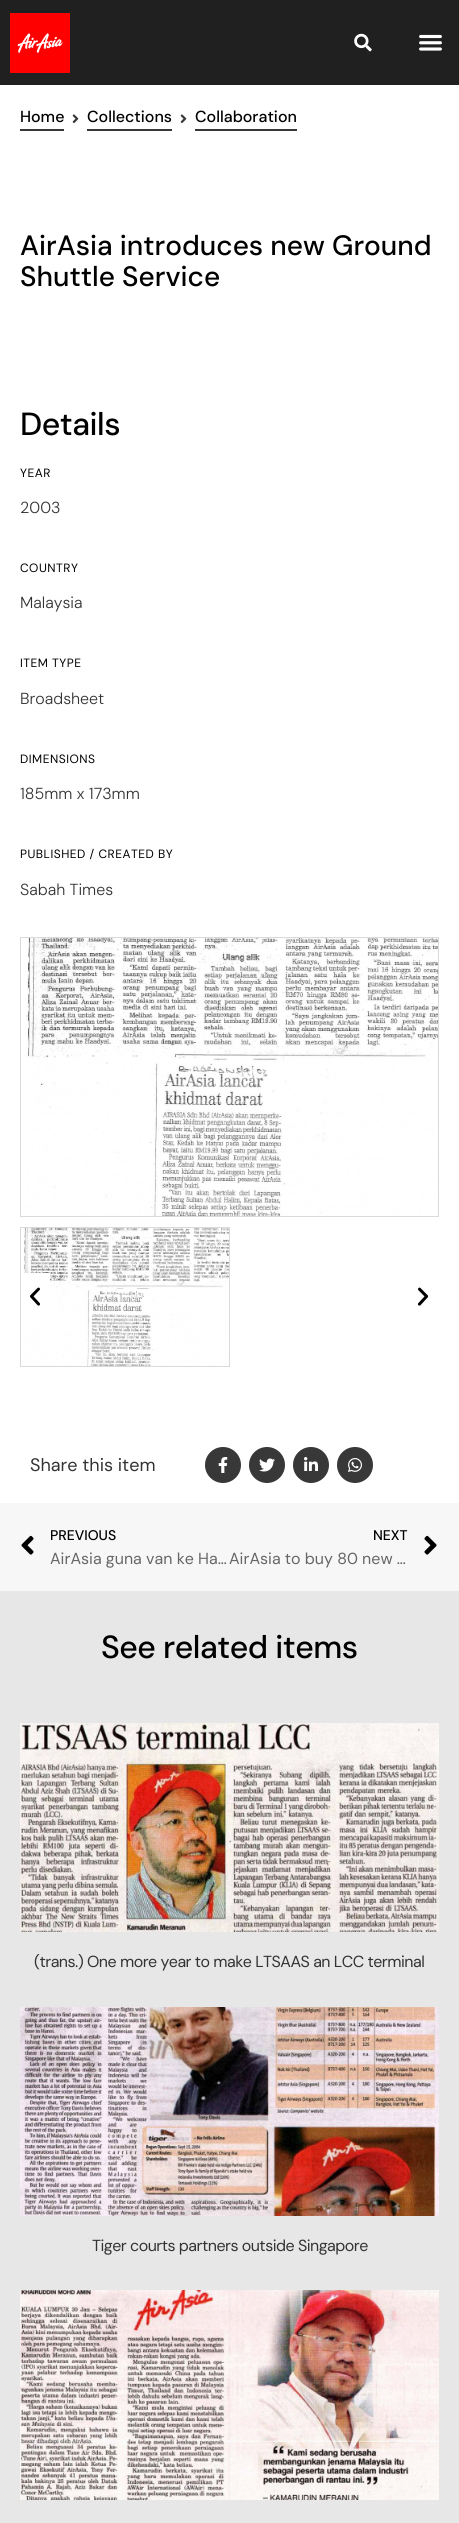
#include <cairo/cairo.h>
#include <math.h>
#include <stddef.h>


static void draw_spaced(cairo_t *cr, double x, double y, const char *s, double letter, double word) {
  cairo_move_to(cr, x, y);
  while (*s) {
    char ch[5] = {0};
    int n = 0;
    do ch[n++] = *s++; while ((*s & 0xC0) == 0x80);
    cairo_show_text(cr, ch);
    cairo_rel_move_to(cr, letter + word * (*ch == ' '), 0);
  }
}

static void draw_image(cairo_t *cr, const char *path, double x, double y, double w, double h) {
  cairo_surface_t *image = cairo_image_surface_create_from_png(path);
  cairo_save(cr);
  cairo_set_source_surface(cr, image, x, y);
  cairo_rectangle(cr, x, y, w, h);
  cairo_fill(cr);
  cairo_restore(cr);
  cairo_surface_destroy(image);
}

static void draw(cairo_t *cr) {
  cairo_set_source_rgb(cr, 1, 1, 1);
  cairo_paint(cr);
  cairo_set_source_rgb(cr, 32 / 255.0, 32 / 255.0, 32 / 255.0);
  cairo_rectangle(cr, 0, 0, 459, 85);
  cairo_fill(cr);
  draw_image(cr, "images/1.png", 10, 13, 60, 60);
  draw_image(cr, "images/2.png", 354, 33, 18, 19);
  draw_image(cr, "images/3.png", 419, 34, 23, 17);
  cairo_set_source_rgb(cr, 56 / 255.0, 56 / 255.0, 56 / 255.0);
  cairo_rectangle(cr, 20, 129, 44, 2);
  cairo_fill(cr);
  draw_image(cr, "images/4.png", 72, 114, 7, 10);
  cairo_rectangle(cr, 87, 129, 85, 2);
  cairo_fill(cr);
  draw_image(cr, "images/4.png", 180, 114, 7, 10);
  cairo_rectangle(cr, 195, 129, 102, 2);
  cairo_fill(cr);
  cairo_rectangle(cr, 20.5, 937.5, 418, 279);
  cairo_set_source_rgb(cr, 218 / 255.0, 218 / 255.0, 218 / 255.0);
  cairo_set_line_width(cr, 1);
  cairo_stroke(cr);
  draw_image(cr, "images/5.png", 26, 938, 412, 278);
  cairo_rectangle(cr, 20.5, 1227.5, 209, 139);
  cairo_stroke(cr);
  draw_image(cr, "images/6.png", 23, 1228, 206, 138);
  cairo_set_source_rgb(cr, 1, 1, 1);
  cairo_rectangle(cr, 24, 1273, 26, 40);
  cairo_fill(cr);
  draw_image(cr, "images/7.png", 30, 1287, 11, 19);
  draw_image(cr, "images/8.png", 417, 1287, 12, 19);
  cairo_set_source_rgb(cr, 56 / 255.0, 56 / 255.0, 56 / 255.0);
  cairo_arc(cr, 223, 1465, 18, 0, 2 * M_PI);
  cairo_fill(cr);
  draw_image(cr, "images/9.png", 218, 1457, 10, 16);
  cairo_arc(cr, 267, 1465, 18, 0, 2 * M_PI);
  cairo_fill(cr);
  draw_image(cr, "images/10.png", 259, 1458, 16, 14);
  cairo_arc(cr, 311, 1465, 18, 0, 2 * M_PI);
  cairo_fill(cr);
  draw_image(cr, "images/11.png", 304, 1457, 14, 14);
  cairo_arc(cr, 355, 1465, 18, 0, 2 * M_PI);
  cairo_fill(cr);
  draw_image(cr, "images/12.png", 348, 1458, 14, 14);
  cairo_set_source_rgb(cr, 247 / 255.0, 247 / 255.0, 247 / 255.0);
  cairo_rectangle(cr, 0, 1503, 459, 88);
  cairo_fill(cr);
  draw_image(cr, "images/13.png", 21, 1535, 13, 20);
  draw_image(cr, "images/14.png", 424, 1535, 13, 20);
  cairo_set_source_rgb(cr, 231 / 255.0, 231 / 255.0, 231 / 255.0);
  cairo_rectangle(cr, 0, 1591, 459, 932);
  cairo_fill(cr);
  draw_image(cr, "images/15.png", 20, 1723, 419, 209);
  draw_image(cr, "images/16.png", 20, 2007, 419, 209);
  draw_image(cr, "images/17.png", 20, 2290, 419, 210);
  cairo_select_font_face(cr, "DM Sans Medium", CAIRO_FONT_SLANT_NORMAL, CAIRO_FONT_WEIGHT_NORMAL);
  cairo_set_font_size(cr, 16);
  cairo_set_source_rgb(cr, 0, 0, 0);
  cairo_move_to(cr, 20, 122);
  cairo_show_text(cr, "Home");
  cairo_move_to(cr, 87, 122);
  cairo_show_text(cr, "Collections");
  cairo_move_to(cr, 195, 122);
  cairo_show_text(cr, "Collaboration");
  cairo_set_font_size(cr, 28);
  cairo_move_to(cr, 20, 255);
  cairo_show_text(cr, "AirAsia introduces new Ground");
  cairo_move_to(cr, 20, 286);
  cairo_show_text(cr, "Shuttle Service");
  cairo_set_font_size(cr, 32);
  draw_spaced(cr, 20, 435, "Details", -0.5, 0);
  cairo_select_font_face(cr, "DM Sans", CAIRO_FONT_SLANT_NORMAL, CAIRO_FONT_WEIGHT_NORMAL);
  cairo_set_font_size(cr, 12);
  draw_spaced(cr, 20, 477, "YEAR", 0.5, 0);
  cairo_select_font_face(cr, "DM Sans Light", CAIRO_FONT_SLANT_NORMAL, CAIRO_FONT_WEIGHT_NORMAL);
  cairo_set_font_size(cr, 16);
  cairo_set_source_rgb(cr, 51 / 255.0, 51 / 255.0, 51 / 255.0);
  cairo_move_to(cr, 20, 513);
  cairo_show_text(cr, "2003");
  cairo_select_font_face(cr, "DM Sans", CAIRO_FONT_SLANT_NORMAL, CAIRO_FONT_WEIGHT_NORMAL);
  cairo_set_font_size(cr, 12);
  cairo_set_source_rgb(cr, 0, 0, 0);
  draw_spaced(cr, 20, 572, "COUNTRY", 0.5, 0);
  cairo_select_font_face(cr, "DM Sans Light", CAIRO_FONT_SLANT_NORMAL, CAIRO_FONT_WEIGHT_NORMAL);
  cairo_set_font_size(cr, 16);
  cairo_set_source_rgb(cr, 51 / 255.0, 51 / 255.0, 51 / 255.0);
  cairo_move_to(cr, 20, 608);
  cairo_show_text(cr, "Malaysia");
  cairo_select_font_face(cr, "DM Sans", CAIRO_FONT_SLANT_NORMAL, CAIRO_FONT_WEIGHT_NORMAL);
  cairo_set_font_size(cr, 12);
  cairo_set_source_rgb(cr, 0, 0, 0);
  draw_spaced(cr, 20, 667, "ITEM TYPE", 0.5, 0);
  cairo_select_font_face(cr, "DM Sans Light", CAIRO_FONT_SLANT_NORMAL, CAIRO_FONT_WEIGHT_NORMAL);
  cairo_set_font_size(cr, 16);
  cairo_set_source_rgb(cr, 51 / 255.0, 51 / 255.0, 51 / 255.0);
  cairo_move_to(cr, 20, 704);
  cairo_show_text(cr, "Broadsheet");
  cairo_select_font_face(cr, "DM Sans", CAIRO_FONT_SLANT_NORMAL, CAIRO_FONT_WEIGHT_NORMAL);
  cairo_set_font_size(cr, 12);
  cairo_set_source_rgb(cr, 0, 0, 0);
  draw_spaced(cr, 20, 763, "DIMENSIONS", 0.5, 0);
  cairo_select_font_face(cr, "DM Sans Light", CAIRO_FONT_SLANT_NORMAL, CAIRO_FONT_WEIGHT_NORMAL);
  cairo_set_font_size(cr, 16);
  cairo_set_source_rgb(cr, 51 / 255.0, 51 / 255.0, 51 / 255.0);
  cairo_move_to(cr, 20, 799);
  cairo_show_text(cr, "185mm x 173mm");
  cairo_select_font_face(cr, "DM Sans", CAIRO_FONT_SLANT_NORMAL, CAIRO_FONT_WEIGHT_NORMAL);
  cairo_set_font_size(cr, 12);
  cairo_set_source_rgb(cr, 0, 0, 0);
  draw_spaced(cr, 20, 858, "PUBLISHED / CREATED BY", 0.5, 0);
  cairo_select_font_face(cr, "DM Sans Light", CAIRO_FONT_SLANT_NORMAL, CAIRO_FONT_WEIGHT_NORMAL);
  cairo_set_font_size(cr, 16);
  cairo_set_source_rgb(cr, 51 / 255.0, 51 / 255.0, 51 / 255.0);
  cairo_move_to(cr, 20, 895);
  cairo_show_text(cr, "Sabah Times");
  cairo_select_font_face(cr, "DM Sans", CAIRO_FONT_SLANT_NORMAL, CAIRO_FONT_WEIGHT_NORMAL);
  cairo_set_font_size(cr, 18);
  cairo_move_to(cr, 30, 1471);
  cairo_show_text(cr, "Share this item");
  cairo_select_font_face(cr, "DM Sans Medium", CAIRO_FONT_SLANT_NORMAL, CAIRO_FONT_WEIGHT_NORMAL);
  cairo_set_font_size(cr, 14);
  cairo_set_source_rgb(cr, 0, 0, 0);
  cairo_move_to(cr, 50, 1540);
  cairo_show_text(cr, "PREVIOUS");
  cairo_select_font_face(cr, "DM Sans", CAIRO_FONT_SLANT_NORMAL, CAIRO_FONT_WEIGHT_NORMAL);
  cairo_set_font_size(cr, 16);
  cairo_set_source_rgb(cr, 102 / 255.0, 102 / 255.0, 102 / 255.0);
  cairo_move_to(cr, 50, 1564);
  cairo_show_text(cr, "AirAsia guna van ke Ha…");
  cairo_select_font_face(cr, "DM Sans Medium", CAIRO_FONT_SLANT_NORMAL, CAIRO_FONT_WEIGHT_NORMAL);
  cairo_set_font_size(cr, 14);
  cairo_set_source_rgb(cr, 0, 0, 0);
  cairo_move_to(cr, 373, 1540);
  cairo_show_text(cr, "NEXT");
  cairo_select_font_face(cr, "DM Sans", CAIRO_FONT_SLANT_NORMAL, CAIRO_FONT_WEIGHT_NORMAL);
  cairo_set_font_size(cr, 16);
  cairo_set_source_rgb(cr, 102 / 255.0, 102 / 255.0, 102 / 255.0);
  cairo_move_to(cr, 229, 1564);
  cairo_show_text(cr, "AirAsia to buy 80 new …");
  cairo_select_font_face(cr, "DM Sans Medium", CAIRO_FONT_SLANT_NORMAL, CAIRO_FONT_WEIGHT_NORMAL);
  cairo_set_font_size(cr, 32);
  cairo_set_source_rgb(cr, 0, 0, 0);
  draw_spaced(cr, 101, 1658, "See related items", -0.5, 0);
  cairo_select_font_face(cr, "DM Sans", CAIRO_FONT_SLANT_NORMAL, CAIRO_FONT_WEIGHT_NORMAL);
  cairo_set_font_size(cr, 16);
  cairo_set_source_rgb(cr, 51 / 255.0, 51 / 255.0, 51 / 255.0);
  draw_spaced(cr, 34, 1967, "(trans.) One more year to make LTSAAS an LCC terminal", -0.5, 0);
  draw_spaced(cr, 92, 2251, "Tiger courts partners outside Singapore", -0.5, 0);
}

int main(void) {
  cairo_surface_t *surface = cairo_image_surface_create(CAIRO_FORMAT_RGB24, 459, 2523);
  cairo_t *cr = cairo_create(surface);
  cairo_font_options_t *options = cairo_font_options_create();
  cairo_font_options_set_hint_metrics(options, CAIRO_HINT_METRICS_OFF);
  cairo_font_options_set_hint_style(options, CAIRO_HINT_STYLE_NONE);
  cairo_set_font_options(cr, options);
  cairo_set_miter_limit(cr, 4);
  draw(cr);
  cairo_surface_write_to_png(surface, "out.png");
  cairo_font_options_destroy(options);
  cairo_destroy(cr);
  cairo_surface_destroy(surface);
  return 0;
}
